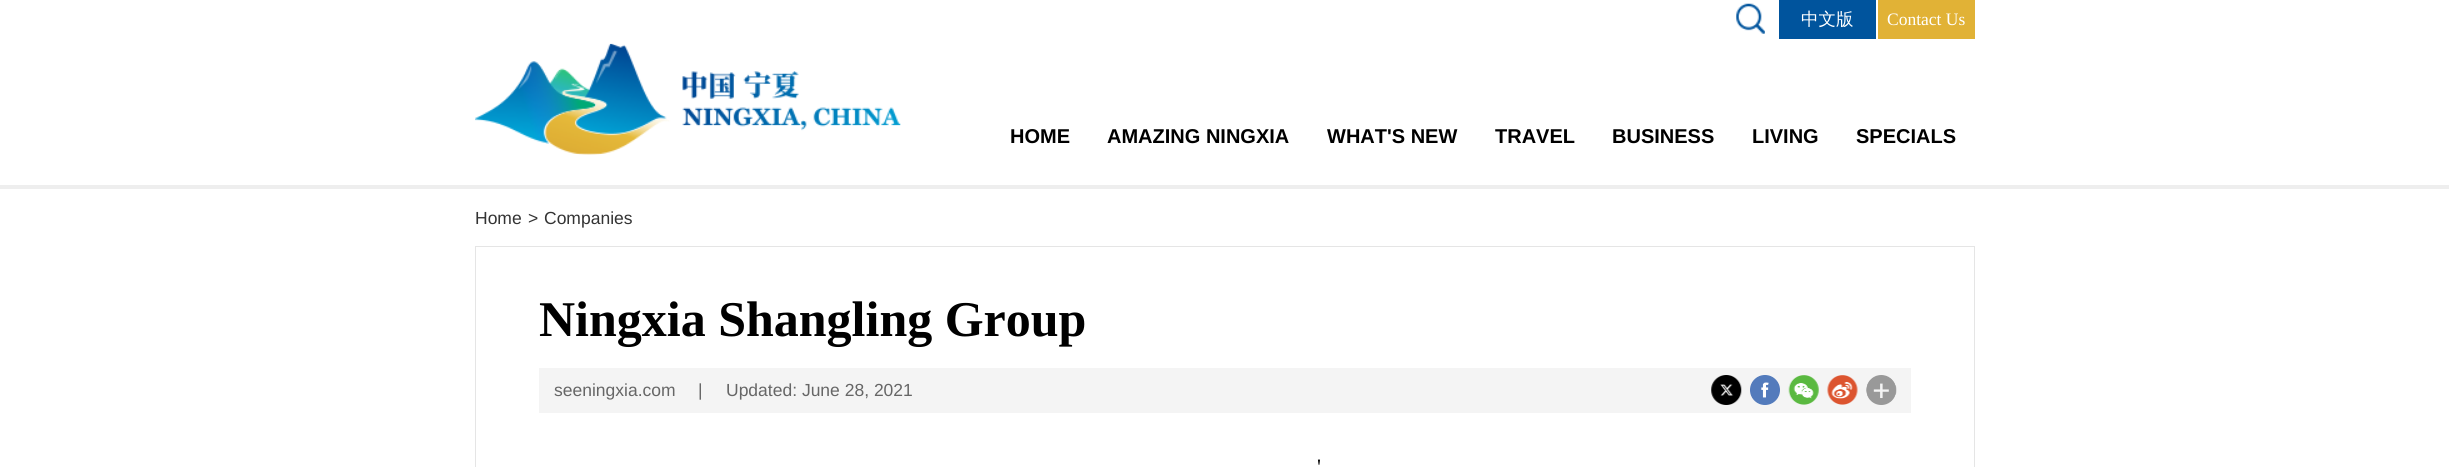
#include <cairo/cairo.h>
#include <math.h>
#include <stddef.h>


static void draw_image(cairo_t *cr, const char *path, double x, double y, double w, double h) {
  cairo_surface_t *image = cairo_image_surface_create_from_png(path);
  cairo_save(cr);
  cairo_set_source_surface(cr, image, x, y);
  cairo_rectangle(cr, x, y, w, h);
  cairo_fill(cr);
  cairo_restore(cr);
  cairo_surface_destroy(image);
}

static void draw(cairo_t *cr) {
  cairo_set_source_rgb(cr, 1, 1, 1);
  cairo_paint(cr);
  cairo_set_source_rgb(cr, 238 / 255.0, 238 / 255.0, 238 / 255.0);
  cairo_rectangle(cr, 0, 185, 2449, 4);
  cairo_fill(cr);
  draw_image(cr, "images/1.png", 475, 43, 426, 112);
  draw_image(cr, "images/2.png", 1736, 3, 29, 31);
  cairo_set_source_rgb(cr, 0, 84 / 255.0, 157 / 255.0);
  cairo_rectangle(cr, 1779, 0, 97, 39);
  cairo_fill(cr);
  cairo_set_source_rgb(cr, 225 / 255.0, 178 / 255.0, 54 / 255.0);
  cairo_rectangle(cr, 1878, 0, 97, 39);
  cairo_fill(cr);
  cairo_rectangle(cr, 475.5, 246.5, 1499, 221);
  cairo_set_source_rgb(cr, 229 / 255.0, 229 / 255.0, 229 / 255.0);
  cairo_set_line_width(cr, 1);
  cairo_stroke(cr);
  cairo_set_source_rgb(cr, 244 / 255.0, 244 / 255.0, 244 / 255.0);
  cairo_rectangle(cr, 539, 368, 1372, 45);
  cairo_fill(cr);
  draw_image(cr, "images/3.png", 1711, 375, 31, 30);
  draw_image(cr, "images/4.png", 1750, 375, 30, 30);
  draw_image(cr, "images/5.png", 1788, 375, 31, 30);
  draw_image(cr, "images/6.png", 1827, 375, 31, 30);
  draw_image(cr, "images/7.png", 1866, 375, 31, 30);
  cairo_select_font_face(cr, "WenQuanYi Zen Hei Medium", CAIRO_FONT_SLANT_NORMAL, CAIRO_FONT_WEIGHT_NORMAL);
  cairo_set_font_size(cr, 17.5);
  cairo_set_source_rgb(cr, 1, 1, 1);
  cairo_move_to(cr, 1801, 25);
  cairo_show_text(cr, "中文版");
  cairo_select_font_face(cr, "Liberation Serif", CAIRO_FONT_SLANT_NORMAL, CAIRO_FONT_WEIGHT_NORMAL);
  cairo_move_to(cr, 1887, 25);
  cairo_show_text(cr, "Contact Us");
  cairo_select_font_face(cr, "Liberation Sans", CAIRO_FONT_SLANT_NORMAL, CAIRO_FONT_WEIGHT_BOLD);
  cairo_set_font_size(cr, 20);
  cairo_set_source_rgb(cr, 0, 0, 0);
  cairo_move_to(cr, 1010, 143);
  cairo_show_text(cr, "HOME");
  cairo_move_to(cr, 1107, 143);
  cairo_show_text(cr, "AMAZING NINGXIA");
  cairo_move_to(cr, 1327, 143);
  cairo_show_text(cr, "WHAT'S NEW");
  cairo_move_to(cr, 1495, 143);
  cairo_show_text(cr, "TRAVEL");
  cairo_move_to(cr, 1612, 143);
  cairo_show_text(cr, "BUSINESS");
  cairo_move_to(cr, 1752, 143);
  cairo_show_text(cr, "LIVING");
  cairo_move_to(cr, 1856, 143);
  cairo_show_text(cr, "SPECIALS");
  cairo_select_font_face(cr, "Liberation Sans", CAIRO_FONT_SLANT_NORMAL, CAIRO_FONT_WEIGHT_NORMAL);
  cairo_set_font_size(cr, 17.5);
  cairo_set_source_rgb(cr, 51 / 255.0, 51 / 255.0, 51 / 255.0);
  cairo_move_to(cr, 475, 224);
  cairo_show_text(cr, "Home");
  cairo_move_to(cr, 528, 224);
  cairo_show_text(cr, ">");
  cairo_move_to(cr, 544, 224);
  cairo_show_text(cr, "Companies");
  cairo_select_font_face(cr, "Liberation Serif", CAIRO_FONT_SLANT_NORMAL, CAIRO_FONT_WEIGHT_BOLD);
  cairo_set_font_size(cr, 50);
  cairo_set_source_rgb(cr, 0, 0, 0);
  cairo_move_to(cr, 539, 336);
  cairo_show_text(cr, "Ningxia Shangling Group");
  cairo_select_font_face(cr, "Liberation Sans", CAIRO_FONT_SLANT_NORMAL, CAIRO_FONT_WEIGHT_NORMAL);
  cairo_set_font_size(cr, 17.5);
  cairo_set_source_rgb(cr, 102 / 255.0, 102 / 255.0, 102 / 255.0);
  cairo_move_to(cr, 554, 396);
  cairo_show_text(cr, "seeningxia.com");
  cairo_move_to(cr, 698, 396);
  cairo_show_text(cr, "|");
  cairo_move_to(cr, 726, 396);
  cairo_show_text(cr, "Updated: June 28, 2021");
  cairo_select_font_face(cr, "Liberation Serif", CAIRO_FONT_SLANT_NORMAL, CAIRO_FONT_WEIGHT_NORMAL);
  cairo_set_font_size(cr, 22);
  cairo_set_source_rgb(cr, 0, 0, 0);
  cairo_move_to(cr, 1317, 474);
  cairo_show_text(cr, "'");
}

int main(void) {
  cairo_surface_t *surface = cairo_image_surface_create(CAIRO_FORMAT_RGB24, 2449, 467);
  cairo_t *cr = cairo_create(surface);
  cairo_font_options_t *options = cairo_font_options_create();
  cairo_font_options_set_hint_metrics(options, CAIRO_HINT_METRICS_OFF);
  cairo_font_options_set_hint_style(options, CAIRO_HINT_STYLE_NONE);
  cairo_set_font_options(cr, options);
  cairo_set_miter_limit(cr, 4);
  draw(cr);
  cairo_surface_write_to_png(surface, "out.png");
  cairo_font_options_destroy(options);
  cairo_destroy(cr);
  cairo_surface_destroy(surface);
  return 0;
}
